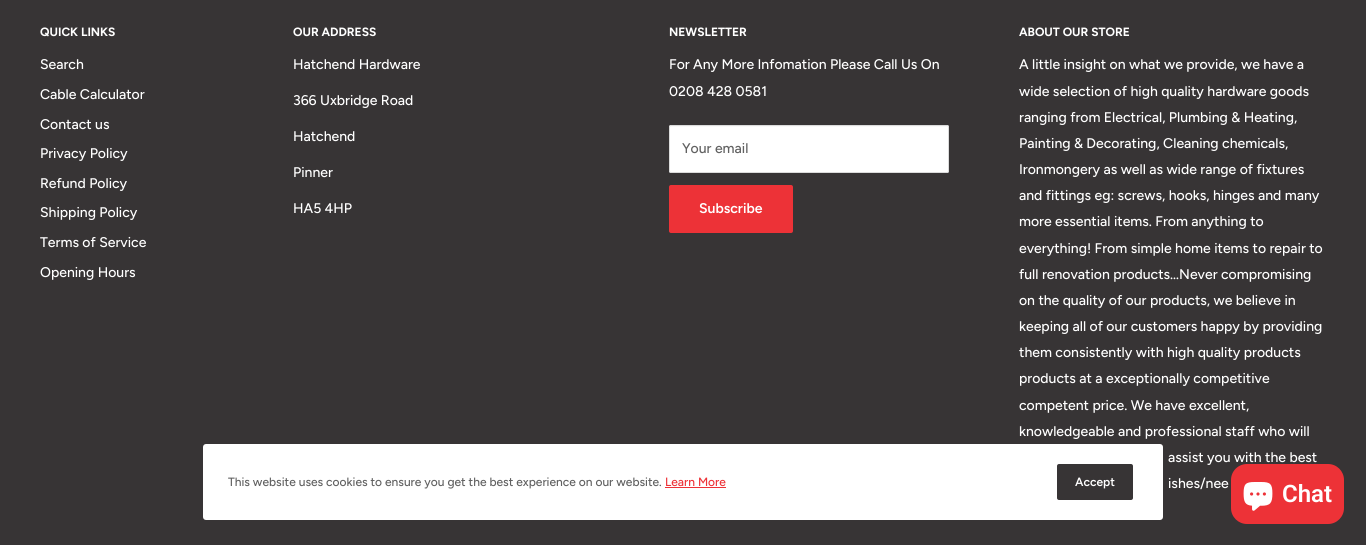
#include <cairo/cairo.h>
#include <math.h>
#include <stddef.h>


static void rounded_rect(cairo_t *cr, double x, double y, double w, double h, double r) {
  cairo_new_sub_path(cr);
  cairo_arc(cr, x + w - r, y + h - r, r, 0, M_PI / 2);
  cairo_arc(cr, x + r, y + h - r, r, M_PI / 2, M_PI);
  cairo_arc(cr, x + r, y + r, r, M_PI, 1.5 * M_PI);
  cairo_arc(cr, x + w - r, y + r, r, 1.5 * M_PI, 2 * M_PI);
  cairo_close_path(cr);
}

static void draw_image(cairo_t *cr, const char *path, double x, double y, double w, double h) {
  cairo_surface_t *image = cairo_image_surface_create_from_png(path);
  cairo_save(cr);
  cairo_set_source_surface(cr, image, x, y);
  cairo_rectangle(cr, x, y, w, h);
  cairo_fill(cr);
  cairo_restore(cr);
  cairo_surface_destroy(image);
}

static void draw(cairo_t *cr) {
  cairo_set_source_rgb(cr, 55 / 255.0, 52 / 255.0, 53 / 255.0);
  cairo_paint(cr);
  cairo_set_source_rgb(cr, 1, 1, 1);
  rounded_rect(cr, 669, 125, 280, 48, 2);
  cairo_fill(cr);
  cairo_set_source_rgb(cr, 249 / 255.0, 249 / 255.0, 249 / 255.0);
  cairo_new_path(cr);
  cairo_move_to(cr, 671, 127);
  cairo_line_to(cr, 947, 127);
  cairo_curve_to(cr, 948, 127, 948, 127, 948, 128);
  cairo_curve_to(cr, 948, 127, 948, 126, 947, 126);
  cairo_line_to(cr, 671, 126);
  cairo_line_to(cr, 670, 126);
  cairo_line_to(cr, 670, 128);
  cairo_curve_to(cr, 670, 127, 670, 127, 671, 127);
  cairo_close_path(cr);
  cairo_fill(cr);
  rounded_rect(cr, 669.5, 125.5, 279, 47, 1.5);
  cairo_set_source_rgb(cr, 219 / 255.0, 219 / 255.0, 219 / 255.0);
  cairo_set_line_width(cr, 1);
  cairo_stroke(cr);
  cairo_set_source_rgb(cr, 237 / 255.0, 50 / 255.0, 55 / 255.0);
  rounded_rect(cr, 669, 185, 124, 48, 2);
  cairo_fill(cr);
  cairo_set_source_rgb(cr, 1, 1, 1);
  rounded_rect(cr, 203, 444, 960, 76, 3);
  cairo_fill(cr);
  cairo_set_source_rgb(cr, 237 / 255.0, 50 / 255.0, 55 / 255.0);
  cairo_rectangle(cr, 665, 487, 61, 1);
  cairo_fill(cr);
  cairo_set_source_rgb(cr, 55 / 255.0, 52 / 255.0, 53 / 255.0);
  rounded_rect(cr, 1057, 464, 76, 36, 2);
  cairo_fill(cr);
  cairo_select_font_face(cr, "Figtree", CAIRO_FONT_SLANT_NORMAL, CAIRO_FONT_WEIGHT_BOLD);
  cairo_set_font_size(cr, 12);
  cairo_set_source_rgb(cr, 1, 1, 1);
  cairo_move_to(cr, 40, 36);
  cairo_show_text(cr, "QUICK LINKS");
  cairo_select_font_face(cr, "Figtree Medium", CAIRO_FONT_SLANT_NORMAL, CAIRO_FONT_WEIGHT_NORMAL);
  cairo_set_font_size(cr, 14);
  cairo_move_to(cr, 40, 69);
  cairo_show_text(cr, "Search");
  cairo_move_to(cr, 40, 99);
  cairo_show_text(cr, "Cable Calculator");
  cairo_move_to(cr, 40, 129);
  cairo_show_text(cr, "Contact us");
  cairo_move_to(cr, 40, 158);
  cairo_show_text(cr, "Privacy Policy");
  cairo_move_to(cr, 40, 188);
  cairo_show_text(cr, "Refund Policy");
  cairo_move_to(cr, 40, 217);
  cairo_show_text(cr, "Shipping Policy");
  cairo_move_to(cr, 40, 247);
  cairo_show_text(cr, "Terms of Service");
  cairo_move_to(cr, 40, 277);
  cairo_show_text(cr, "Opening Hours");
  cairo_select_font_face(cr, "Figtree", CAIRO_FONT_SLANT_NORMAL, CAIRO_FONT_WEIGHT_BOLD);
  cairo_set_font_size(cr, 12);
  cairo_move_to(cr, 293, 36);
  cairo_show_text(cr, "OUR ADDRESS");
  cairo_select_font_face(cr, "Figtree Medium", CAIRO_FONT_SLANT_NORMAL, CAIRO_FONT_WEIGHT_NORMAL);
  cairo_set_font_size(cr, 14);
  cairo_move_to(cr, 293, 69);
  cairo_show_text(cr, "Hatchend Hardware");
  cairo_move_to(cr, 293, 105);
  cairo_show_text(cr, "366 Uxbridge Road");
  cairo_move_to(cr, 293, 141);
  cairo_show_text(cr, "Hatchend");
  cairo_move_to(cr, 293, 177);
  cairo_show_text(cr, "Pinner");
  cairo_move_to(cr, 293, 213);
  cairo_show_text(cr, "HA5 4HP");
  cairo_select_font_face(cr, "Figtree", CAIRO_FONT_SLANT_NORMAL, CAIRO_FONT_WEIGHT_BOLD);
  cairo_set_font_size(cr, 12);
  cairo_move_to(cr, 669, 36);
  cairo_show_text(cr, "NEWSLETTER");
  cairo_select_font_face(cr, "Figtree Medium", CAIRO_FONT_SLANT_NORMAL, CAIRO_FONT_WEIGHT_NORMAL);
  cairo_set_font_size(cr, 14);
  cairo_move_to(cr, 669, 69);
  cairo_show_text(cr, "For Any More Infomation Please Call Us On");
  cairo_move_to(cr, 669, 96);
  cairo_show_text(cr, "0208 428 0581");
  cairo_set_source_rgb(cr, 97 / 255.0, 97 / 255.0, 97 / 255.0);
  cairo_move_to(cr, 682, 153);
  cairo_show_text(cr, "Your email");
  cairo_select_font_face(cr, "Figtree SemiBold", CAIRO_FONT_SLANT_NORMAL, CAIRO_FONT_WEIGHT_NORMAL);
  cairo_set_source_rgb(cr, 1, 1, 1);
  cairo_move_to(cr, 699, 213);
  cairo_show_text(cr, "Subscribe");
  cairo_select_font_face(cr, "Figtree", CAIRO_FONT_SLANT_NORMAL, CAIRO_FONT_WEIGHT_BOLD);
  cairo_set_font_size(cr, 12);
  cairo_move_to(cr, 1019, 36);
  cairo_show_text(cr, "ABOUT OUR STORE");
  cairo_select_font_face(cr, "Figtree Medium", CAIRO_FONT_SLANT_NORMAL, CAIRO_FONT_WEIGHT_NORMAL);
  cairo_set_font_size(cr, 14);
  cairo_move_to(cr, 1019, 69);
  cairo_show_text(cr, "A little insight on what we provide, we have a");
  cairo_move_to(cr, 1019, 96);
  cairo_show_text(cr, "wide selection of high quality hardware goods");
  cairo_move_to(cr, 1019, 122);
  cairo_show_text(cr, "ranging from Electrical, Plumbing & Heating,");
  cairo_move_to(cr, 1019, 148);
  cairo_show_text(cr, "Painting & Decorating, Cleaning chemicals,");
  cairo_move_to(cr, 1019, 174);
  cairo_show_text(cr, "Ironmongery as well as wide range of fixtures");
  cairo_move_to(cr, 1019, 200);
  cairo_show_text(cr, "and fittings eg: screws, hooks, hinges and many");
  cairo_move_to(cr, 1019, 226);
  cairo_show_text(cr, "more essential items. From anything to");
  cairo_move_to(cr, 1019, 253);
  cairo_show_text(cr, "everything! From simple home items to repair to");
  cairo_move_to(cr, 1019, 279);
  cairo_show_text(cr, "full renovation products…Never compromising");
  cairo_move_to(cr, 1019, 305);
  cairo_show_text(cr, "on the quality of our products, we believe in");
  cairo_move_to(cr, 1019, 331);
  cairo_show_text(cr, "keeping all of our customers happy by providing");
  cairo_move_to(cr, 1019, 357);
  cairo_show_text(cr, "them consistently with high quality products");
  cairo_move_to(cr, 1019, 383);
  cairo_show_text(cr, "products at a exceptionally competitive");
  cairo_move_to(cr, 1019, 410);
  cairo_show_text(cr, "competent price. We have excellent,");
  cairo_move_to(cr, 1019, 436);
  cairo_show_text(cr, "knowledgeable and professional staff who will");
  cairo_move_to(cr, 1168, 462);
  cairo_show_text(cr, "assist you with the best");
  cairo_move_to(cr, 1168, 488);
  cairo_show_text(cr, "ishes/nee");
  cairo_set_font_size(cr, 12);
  cairo_set_source_rgb(cr, 97 / 255.0, 97 / 255.0, 97 / 255.0);
  cairo_move_to(cr, 228, 486);
  cairo_show_text(cr, "This website uses cookies to ensure you get the best experience on our website.");
  cairo_set_source_rgb(cr, 237 / 255.0, 50 / 255.0, 55 / 255.0);
  cairo_move_to(cr, 665, 486);
  cairo_show_text(cr, "Learn More");
  cairo_select_font_face(cr, "Figtree SemiBold", CAIRO_FONT_SLANT_NORMAL, CAIRO_FONT_WEIGHT_NORMAL);
  cairo_set_source_rgb(cr, 1, 1, 1);
  cairo_move_to(cr, 1075, 486);
  cairo_show_text(cr, "Accept");
  cairo_set_source_rgb(cr, 237 / 255.0, 50 / 255.0, 55 / 255.0);
  rounded_rect(cr, 1231, 464, 113, 60, 16);
  cairo_fill(cr);
  draw_image(cr, "images/1.png", 1243, 482, 30, 29);
  cairo_select_font_face(cr, "Roboto SemiBold", CAIRO_FONT_SLANT_NORMAL, CAIRO_FONT_WEIGHT_NORMAL);
  cairo_set_font_size(cr, 24);
  cairo_set_source_rgb(cr, 1, 1, 1);
  cairo_move_to(cr, 1282, 502);
  cairo_show_text(cr, "Chat");
}

int main(void) {
  cairo_surface_t *surface = cairo_image_surface_create(CAIRO_FORMAT_RGB24, 1366, 545);
  cairo_t *cr = cairo_create(surface);
  cairo_font_options_t *options = cairo_font_options_create();
  cairo_font_options_set_hint_metrics(options, CAIRO_HINT_METRICS_OFF);
  cairo_font_options_set_hint_style(options, CAIRO_HINT_STYLE_NONE);
  cairo_set_font_options(cr, options);
  cairo_set_miter_limit(cr, 4);
  draw(cr);
  cairo_surface_write_to_png(surface, "out.png");
  cairo_font_options_destroy(options);
  cairo_destroy(cr);
  cairo_surface_destroy(surface);
  return 0;
}
